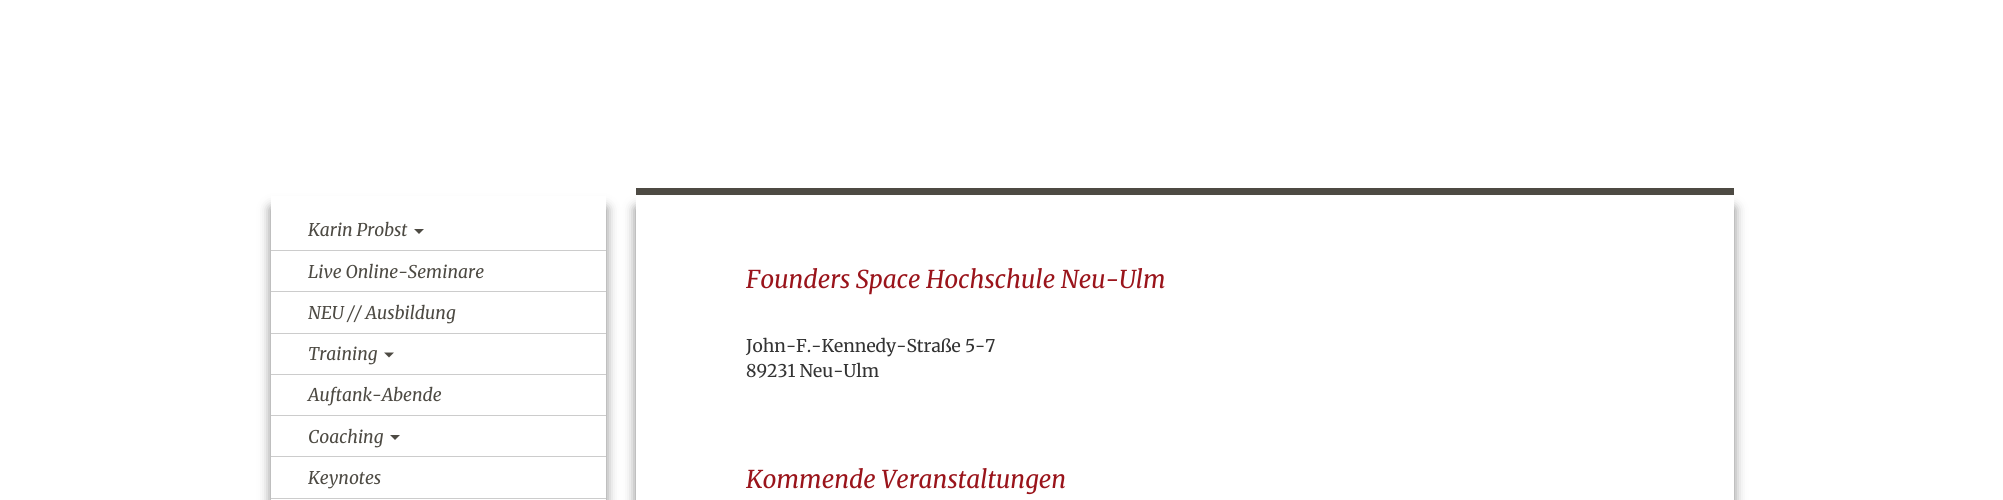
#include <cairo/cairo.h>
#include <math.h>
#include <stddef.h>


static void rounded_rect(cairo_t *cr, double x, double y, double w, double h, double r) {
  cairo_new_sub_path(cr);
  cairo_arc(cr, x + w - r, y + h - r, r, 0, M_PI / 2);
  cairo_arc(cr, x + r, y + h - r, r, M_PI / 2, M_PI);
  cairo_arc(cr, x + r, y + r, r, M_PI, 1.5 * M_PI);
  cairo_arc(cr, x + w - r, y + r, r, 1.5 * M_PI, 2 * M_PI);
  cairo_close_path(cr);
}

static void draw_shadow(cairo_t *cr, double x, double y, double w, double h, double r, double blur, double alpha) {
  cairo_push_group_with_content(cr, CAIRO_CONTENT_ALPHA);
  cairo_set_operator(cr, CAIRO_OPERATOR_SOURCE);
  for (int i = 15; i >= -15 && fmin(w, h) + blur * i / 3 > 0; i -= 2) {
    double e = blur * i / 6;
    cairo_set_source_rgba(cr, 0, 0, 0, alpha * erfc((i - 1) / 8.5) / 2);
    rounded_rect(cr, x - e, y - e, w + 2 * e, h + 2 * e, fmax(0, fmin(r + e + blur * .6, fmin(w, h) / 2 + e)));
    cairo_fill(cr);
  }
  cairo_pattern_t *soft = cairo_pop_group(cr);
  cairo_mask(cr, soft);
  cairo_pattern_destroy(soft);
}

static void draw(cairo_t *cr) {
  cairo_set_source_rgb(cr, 1, 1, 1);
  cairo_paint(cr);
  cairo_set_source_rgb(cr, 77 / 255.0, 74 / 255.0, 67 / 255.0);
  cairo_rectangle(cr, 636, 188, 1098, 7);
  cairo_fill(cr);
  cairo_set_source_rgb(cr, 0, 0, 0);
  draw_shadow(cr, 271, 208, 335, 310, 0, 6, 0.5);
  cairo_set_source_rgb(cr, 1, 1, 1);
  cairo_rectangle(cr, 271, 196, 335, 304);
  cairo_fill(cr);
  cairo_set_source_rgb(cr, 204 / 255.0, 204 / 255.0, 204 / 255.0);
  cairo_rectangle(cr, 271, 250, 335, 1);
  cairo_fill(cr);
  cairo_set_source_rgb(cr, 77 / 255.0, 74 / 255.0, 67 / 255.0);
  cairo_new_path(cr);
  cairo_move_to(cr, 414, 229);
  cairo_line_to(cr, 424, 229);
  cairo_line_to(cr, 419, 234);
  cairo_close_path(cr);
  cairo_fill(cr);
  cairo_set_source_rgb(cr, 204 / 255.0, 204 / 255.0, 204 / 255.0);
  cairo_rectangle(cr, 271, 291, 335, 1);
  cairo_fill(cr);
  cairo_rectangle(cr, 271, 333, 335, 1);
  cairo_fill(cr);
  cairo_rectangle(cr, 271, 374, 335, 1);
  cairo_fill(cr);
  cairo_set_source_rgb(cr, 77 / 255.0, 74 / 255.0, 67 / 255.0);
  cairo_new_path(cr);
  cairo_move_to(cr, 384, 352.5);
  cairo_line_to(cr, 394, 352.5);
  cairo_line_to(cr, 389, 357.5);
  cairo_close_path(cr);
  cairo_fill(cr);
  cairo_set_source_rgb(cr, 204 / 255.0, 204 / 255.0, 204 / 255.0);
  cairo_rectangle(cr, 271, 415, 335, 1);
  cairo_fill(cr);
  cairo_rectangle(cr, 271, 456, 335, 1);
  cairo_fill(cr);
  cairo_set_source_rgb(cr, 77 / 255.0, 74 / 255.0, 67 / 255.0);
  cairo_new_path(cr);
  cairo_move_to(cr, 390, 435);
  cairo_line_to(cr, 400, 435);
  cairo_line_to(cr, 395, 440);
  cairo_close_path(cr);
  cairo_fill(cr);
  cairo_set_source_rgb(cr, 204 / 255.0, 204 / 255.0, 204 / 255.0);
  cairo_rectangle(cr, 271, 498, 335, 1);
  cairo_fill(cr);
  cairo_set_source_rgb(cr, 0, 0, 0);
  draw_shadow(cr, 636, 208, 1098, 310, 0, 6, 0.5);
  cairo_set_source_rgb(cr, 1, 1, 1);
  cairo_rectangle(cr, 636, 196, 1098, 304);
  cairo_fill(cr);
  cairo_select_font_face(cr, "Merriweather", CAIRO_FONT_SLANT_ITALIC, CAIRO_FONT_WEIGHT_NORMAL);
  cairo_set_font_size(cr, 17.5);
  cairo_set_source_rgb(cr, 77 / 255.0, 74 / 255.0, 67 / 255.0);
  cairo_move_to(cr, 308, 236);
  cairo_show_text(cr, "Karin Probst");
  cairo_move_to(cr, 308, 278);
  cairo_show_text(cr, "Live Online-Seminare");
  cairo_move_to(cr, 308, 319);
  cairo_show_text(cr, "NEU // Ausbildung");
  cairo_move_to(cr, 308, 360);
  cairo_show_text(cr, "Training");
  cairo_move_to(cr, 308, 401);
  cairo_show_text(cr, "Auftank-Abende");
  cairo_move_to(cr, 308, 443);
  cairo_show_text(cr, "Coaching");
  cairo_move_to(cr, 308, 484);
  cairo_show_text(cr, "Keynotes");
  cairo_set_font_size(cr, 24.5);
  cairo_set_source_rgb(cr, 154 / 255.0, 20 / 255.0, 27 / 255.0);
  cairo_move_to(cr, 746, 288);
  cairo_show_text(cr, "Founders Space Hochschule Neu-Ulm");
  cairo_select_font_face(cr, "Merriweather", CAIRO_FONT_SLANT_NORMAL, CAIRO_FONT_WEIGHT_NORMAL);
  cairo_set_font_size(cr, 17.5);
  cairo_set_source_rgb(cr, 51 / 255.0, 51 / 255.0, 51 / 255.0);
  cairo_move_to(cr, 746, 352);
  cairo_show_text(cr, "John-F.-Kennedy-Straße 5-7");
  cairo_move_to(cr, 746, 377);
  cairo_show_text(cr, "89231 Neu-Ulm");
  cairo_select_font_face(cr, "Merriweather", CAIRO_FONT_SLANT_ITALIC, CAIRO_FONT_WEIGHT_NORMAL);
  cairo_set_font_size(cr, 24.5);
  cairo_set_source_rgb(cr, 154 / 255.0, 20 / 255.0, 27 / 255.0);
  cairo_move_to(cr, 746, 488);
  cairo_show_text(cr, "Kommende Veranstaltungen");
}

int main(void) {
  cairo_surface_t *surface = cairo_image_surface_create(CAIRO_FORMAT_RGB24, 2003, 500);
  cairo_t *cr = cairo_create(surface);
  cairo_font_options_t *options = cairo_font_options_create();
  cairo_font_options_set_hint_metrics(options, CAIRO_HINT_METRICS_OFF);
  cairo_font_options_set_hint_style(options, CAIRO_HINT_STYLE_NONE);
  cairo_set_font_options(cr, options);
  cairo_set_miter_limit(cr, 4);
  draw(cr);
  cairo_surface_write_to_png(surface, "out.png");
  cairo_font_options_destroy(options);
  cairo_destroy(cr);
  cairo_surface_destroy(surface);
  return 0;
}
